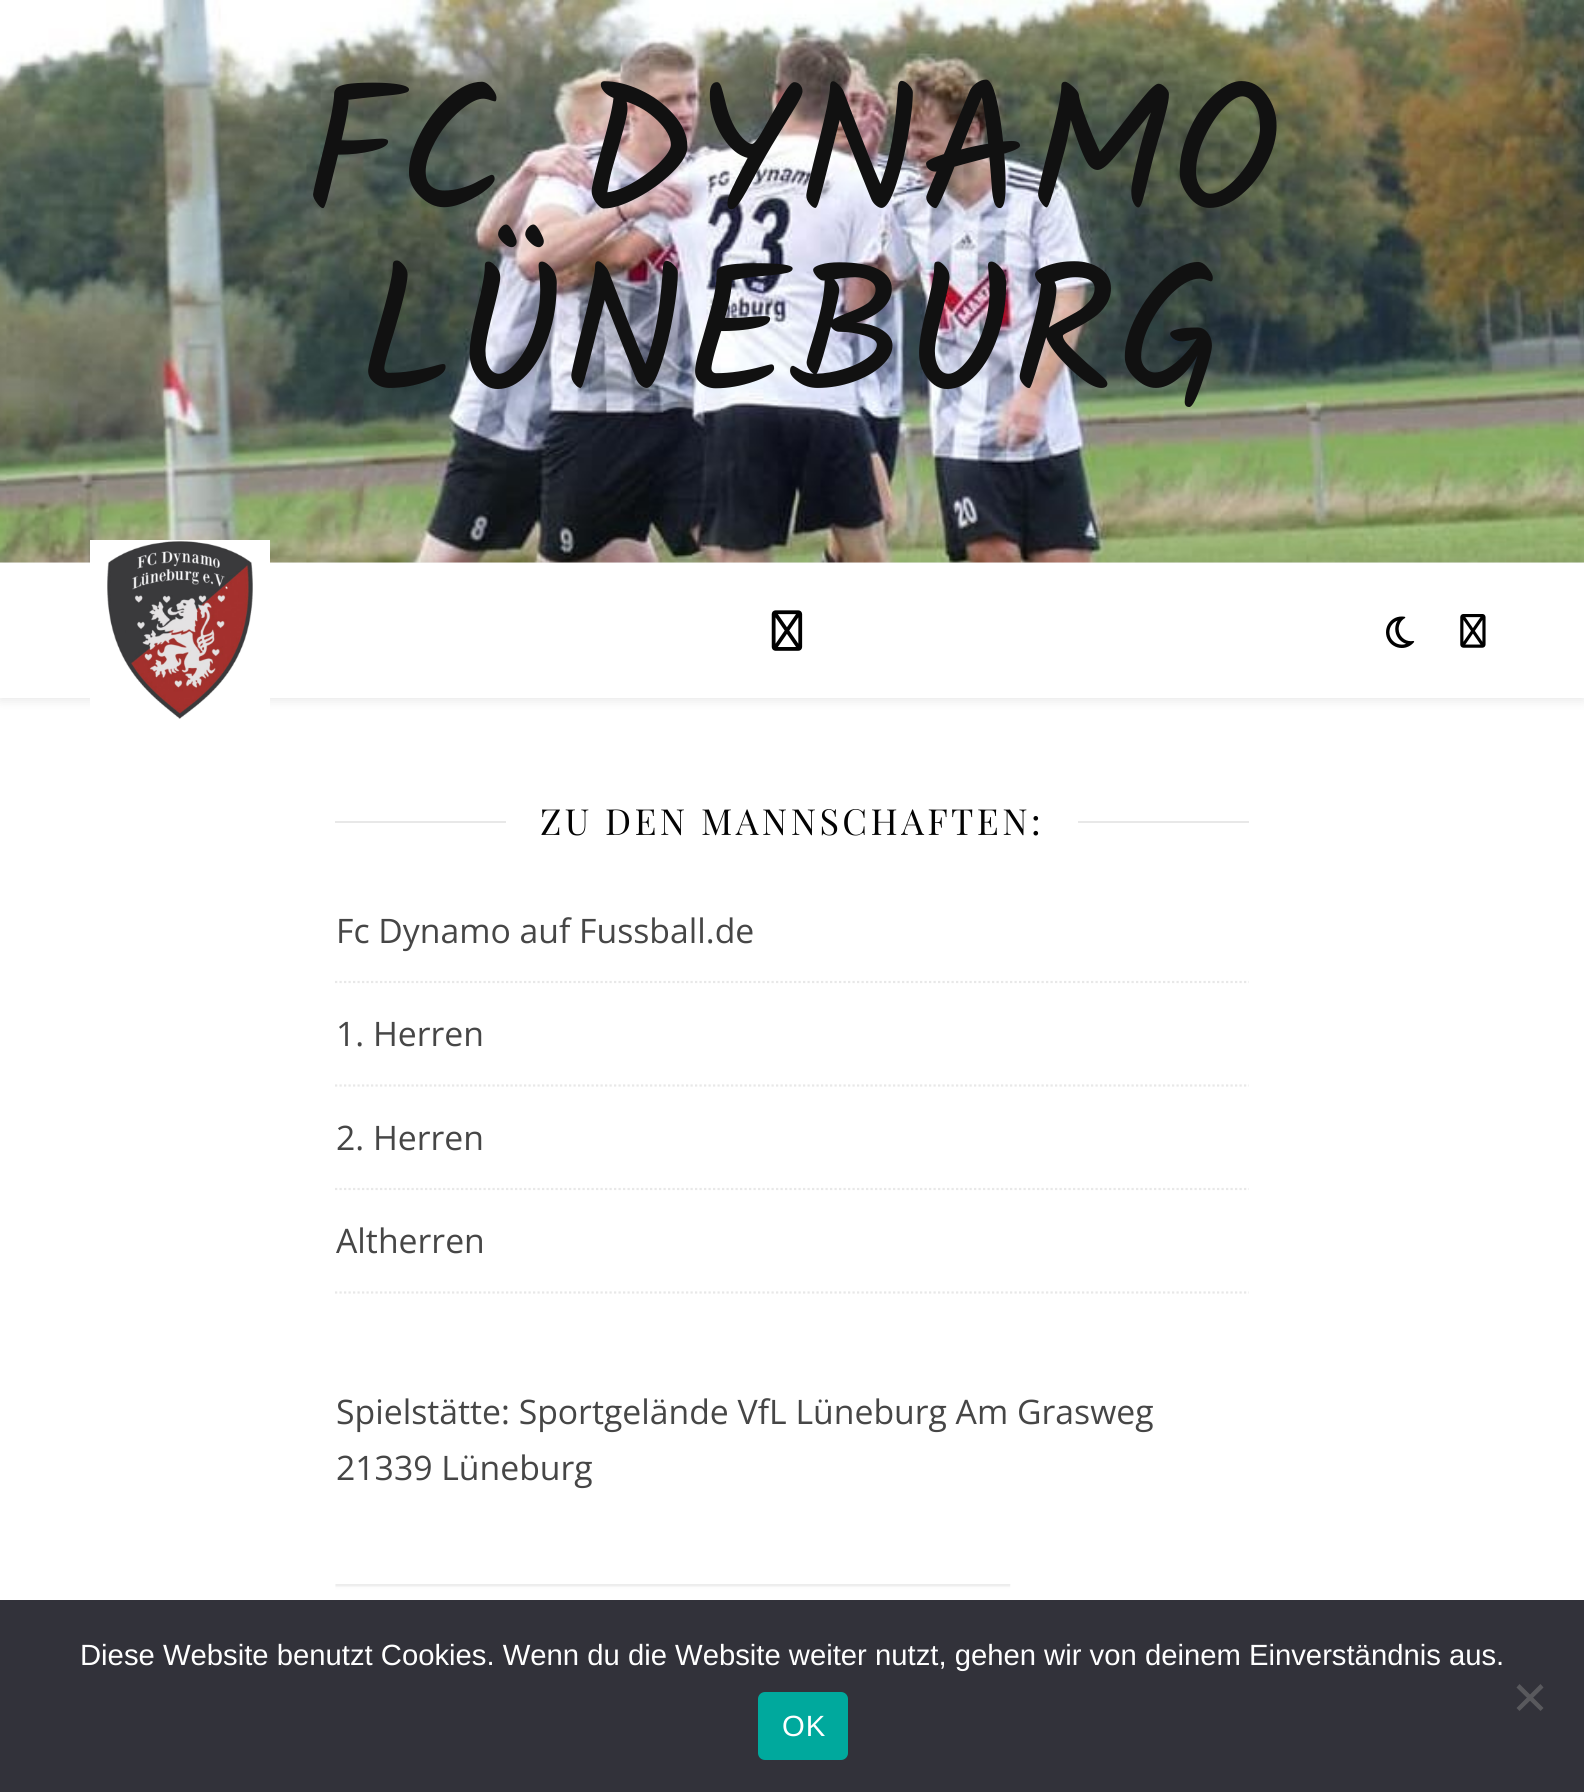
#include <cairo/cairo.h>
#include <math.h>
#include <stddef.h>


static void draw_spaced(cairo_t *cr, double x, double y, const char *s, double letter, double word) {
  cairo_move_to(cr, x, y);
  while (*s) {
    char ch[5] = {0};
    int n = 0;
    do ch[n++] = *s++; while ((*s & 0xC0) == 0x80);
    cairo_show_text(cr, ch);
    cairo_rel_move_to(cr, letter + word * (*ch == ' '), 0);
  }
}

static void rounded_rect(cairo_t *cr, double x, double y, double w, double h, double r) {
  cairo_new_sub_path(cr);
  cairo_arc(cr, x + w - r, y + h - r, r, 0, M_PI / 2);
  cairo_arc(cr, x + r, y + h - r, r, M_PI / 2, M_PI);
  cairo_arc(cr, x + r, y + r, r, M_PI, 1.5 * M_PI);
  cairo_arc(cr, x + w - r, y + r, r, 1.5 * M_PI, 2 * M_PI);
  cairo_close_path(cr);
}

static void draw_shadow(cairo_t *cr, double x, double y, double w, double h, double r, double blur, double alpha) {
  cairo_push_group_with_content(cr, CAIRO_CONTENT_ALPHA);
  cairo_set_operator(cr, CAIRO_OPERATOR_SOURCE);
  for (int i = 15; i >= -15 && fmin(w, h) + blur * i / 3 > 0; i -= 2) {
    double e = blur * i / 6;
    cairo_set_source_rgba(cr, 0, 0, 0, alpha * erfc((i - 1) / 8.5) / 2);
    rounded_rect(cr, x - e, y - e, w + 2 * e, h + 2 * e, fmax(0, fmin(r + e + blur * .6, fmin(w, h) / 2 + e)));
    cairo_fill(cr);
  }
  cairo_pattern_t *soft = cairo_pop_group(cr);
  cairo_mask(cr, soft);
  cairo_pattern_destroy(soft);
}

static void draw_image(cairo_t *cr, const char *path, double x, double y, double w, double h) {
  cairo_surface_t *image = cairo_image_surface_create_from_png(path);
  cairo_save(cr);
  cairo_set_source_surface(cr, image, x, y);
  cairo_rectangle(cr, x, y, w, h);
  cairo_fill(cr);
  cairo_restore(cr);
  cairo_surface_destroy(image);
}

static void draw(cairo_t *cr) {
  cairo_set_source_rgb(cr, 1, 1, 1);
  cairo_paint(cr);
  draw_image(cr, "images/1.png", 0, 0, 1584, 563);
  cairo_set_source_rgb(cr, 0, 0, 0);
  draw_shadow(cr, 0, 565, 1584, 135, 0, 5.5, 0.1);
  cairo_set_source_rgb(cr, 1, 1, 1);
  cairo_rectangle(cr, 0, 563, 1584, 135);
  cairo_fill(cr);
  draw_image(cr, "images/2.png", 90, 540, 180, 179);
  draw_image(cr, "images/3.png", 771, 610, 32, 41);
  draw_image(cr, "images/4.png", 1386, 616, 29, 32);
  draw_image(cr, "images/5.png", 1460, 614, 26, 34);
  cairo_set_source_rgb(cr, 232 / 255.0, 232 / 255.0, 232 / 255.0);
  cairo_rectangle(cr, 335, 821, 171, 2);
  cairo_fill(cr);
  cairo_rectangle(cr, 1078, 821, 171, 2);
  cairo_fill(cr);
  cairo_new_path(cr);
  cairo_move_to(cr, 335, 982);
  cairo_line_to(cr, 1249, 982);
  cairo_set_line_width(cr, 2.2);
  cairo_set_dash(cr, (double[]){2.25, 2.25}, 2, 0);
  cairo_stroke(cr);
  cairo_new_path(cr);
  cairo_move_to(cr, 335, 1085.5);
  cairo_line_to(cr, 1249, 1085.5);
  cairo_stroke(cr);
  cairo_new_path(cr);
  cairo_move_to(cr, 335, 1189);
  cairo_line_to(cr, 1249, 1189);
  cairo_stroke(cr);
  cairo_new_path(cr);
  cairo_move_to(cr, 335, 1292.5);
  cairo_line_to(cr, 1249, 1292.5);
  cairo_stroke(cr);
  draw_image(cr, "images/6.png", 335, 1584, 676, 16);
  cairo_set_source_rgb(cr, 50 / 255.0, 50 / 255.0, 58 / 255.0);
  cairo_rectangle(cr, 0, 1600, 1584, 192);
  cairo_fill(cr);
  cairo_set_source_rgb(cr, 89 / 255.0, 89 / 255.0, 93 / 255.0);
  cairo_new_path(cr);
  cairo_move_to(cr, 1540.5, 1684);
  cairo_line_to(cr, 1543.5, 1687.5);
  cairo_line_to(cr, 1519.5, 1711);
  cairo_line_to(cr, 1516.5, 1708);
  cairo_close_path(cr);
  cairo_fill(cr);
  cairo_new_path(cr);
  cairo_move_to(cr, 1516.5, 1687.5);
  cairo_line_to(cr, 1519.5, 1684);
  cairo_line_to(cr, 1543.5, 1708);
  cairo_line_to(cr, 1540.5, 1711);
  cairo_close_path(cr);
  cairo_fill(cr);
  cairo_set_source_rgb(cr, 0, 169 / 255.0, 157 / 255.0);
  rounded_rect(cr, 758, 1692, 90, 68, 7);
  cairo_fill(cr);
  cairo_select_font_face(cr, "Kalam", CAIRO_FONT_SLANT_NORMAL, CAIRO_FONT_WEIGHT_NORMAL);
  cairo_set_font_size(cr, 180);
  cairo_set_source_rgb(cr, 17 / 255.0, 17 / 255.0, 17 / 255.0);
  cairo_move_to(cr, 303, 211);
  cairo_show_text(cr, "FC DYNAMO");
  cairo_move_to(cr, 357, 391);
  cairo_show_text(cr, "LÜNEBURG");
  cairo_select_font_face(cr, "Playfair Display", CAIRO_FONT_SLANT_NORMAL, CAIRO_FONT_WEIGHT_NORMAL);
  cairo_set_font_size(cr, 36);
  cairo_set_source_rgb(cr, 3 / 255.0, 3 / 255.0, 3 / 255.0);
  draw_spaced(cr, 540, 835, "ZU DEN MANNSCHAFTEN:", 3.4, 0);
  cairo_select_font_face(cr, "Open Sans", CAIRO_FONT_SLANT_NORMAL, CAIRO_FONT_WEIGHT_NORMAL);
  cairo_set_font_size(cr, 33.75);
  cairo_set_source_rgb(cr, 70 / 255.0, 70 / 255.0, 70 / 255.0);
  cairo_move_to(cr, 336, 943);
  cairo_show_text(cr, "Fc Dynamo auf Fussball.de");
  cairo_move_to(cr, 336, 1046);
  cairo_show_text(cr, "1. Herren");
  cairo_move_to(cr, 336, 1150);
  cairo_show_text(cr, "2. Herren");
  cairo_move_to(cr, 336, 1253);
  cairo_show_text(cr, "Altherren");
  cairo_move_to(cr, 336, 1424);
  cairo_show_text(cr, "Spielstätte: Sportgelände VfL Lüneburg Am Grasweg");
  cairo_move_to(cr, 336, 1480);
  cairo_show_text(cr, "21339 Lüneburg");
  cairo_select_font_face(cr, "Liberation Sans", CAIRO_FONT_SLANT_NORMAL, CAIRO_FONT_WEIGHT_NORMAL);
  cairo_set_font_size(cr, 29.25);
  cairo_set_source_rgb(cr, 1, 1, 1);
  cairo_move_to(cr, 80, 1665);
  cairo_show_text(cr, "Diese Website benutzt Cookies. Wenn du die Website weiter nutzt, gehen wir von deinem Einverständnis aus.");
  draw_spaced(cr, 782, 1736, "OK", 1, 0);
}

int main(void) {
  cairo_surface_t *surface = cairo_image_surface_create(CAIRO_FORMAT_RGB24, 1584, 1792);
  cairo_t *cr = cairo_create(surface);
  cairo_font_options_t *options = cairo_font_options_create();
  cairo_font_options_set_hint_metrics(options, CAIRO_HINT_METRICS_OFF);
  cairo_font_options_set_hint_style(options, CAIRO_HINT_STYLE_NONE);
  cairo_set_font_options(cr, options);
  cairo_set_miter_limit(cr, 4);
  draw(cr);
  cairo_surface_write_to_png(surface, "out.png");
  cairo_font_options_destroy(options);
  cairo_destroy(cr);
  cairo_surface_destroy(surface);
  return 0;
}
